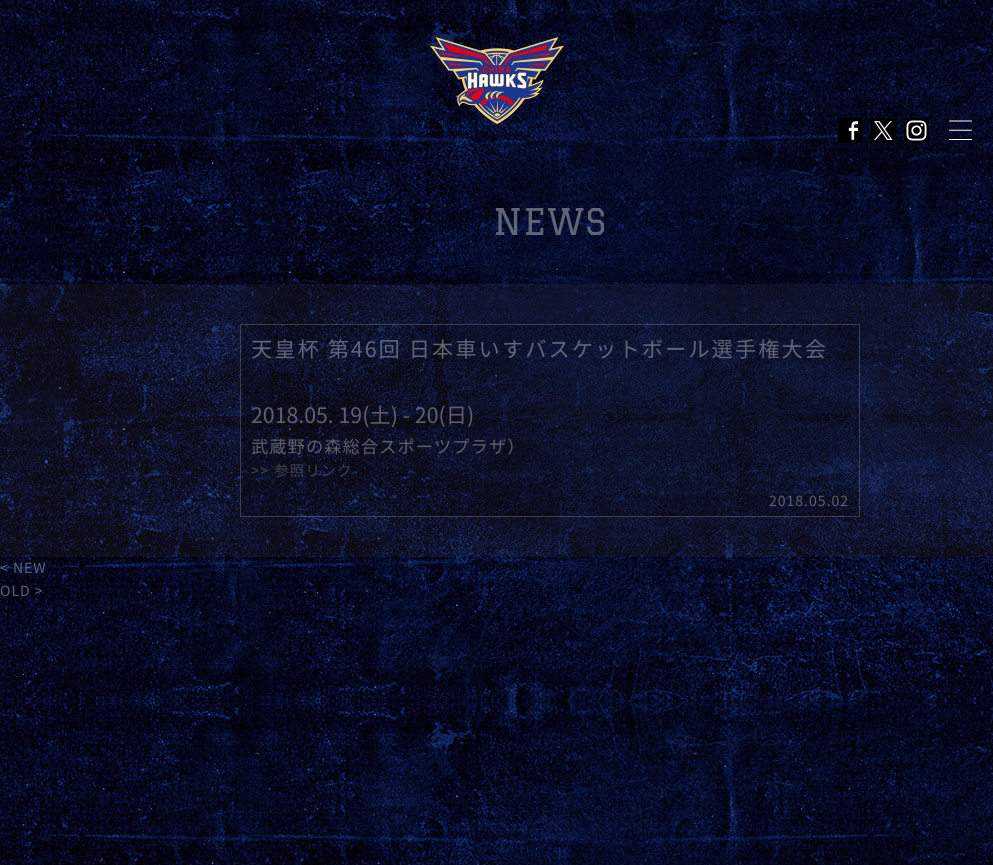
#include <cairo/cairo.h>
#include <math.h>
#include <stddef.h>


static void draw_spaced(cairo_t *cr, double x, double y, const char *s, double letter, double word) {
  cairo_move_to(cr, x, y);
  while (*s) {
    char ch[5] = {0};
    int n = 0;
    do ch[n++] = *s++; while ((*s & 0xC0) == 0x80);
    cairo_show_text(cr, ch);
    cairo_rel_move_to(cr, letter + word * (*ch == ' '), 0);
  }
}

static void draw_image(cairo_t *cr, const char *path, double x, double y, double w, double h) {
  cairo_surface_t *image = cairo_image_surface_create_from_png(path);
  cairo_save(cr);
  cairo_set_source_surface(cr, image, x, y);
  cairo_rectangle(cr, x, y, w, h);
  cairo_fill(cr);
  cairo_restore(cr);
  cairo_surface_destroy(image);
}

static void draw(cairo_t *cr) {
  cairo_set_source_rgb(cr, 1, 1, 1);
  cairo_paint(cr);
  draw_image(cr, "images/1.png", 0, 0, 993, 865);
  draw_image(cr, "images/2.png", 430, 37, 134, 87);
  draw_image(cr, "images/3.png", 838, 118, 25, 25);
  draw_image(cr, "images/4.png", 871, 118, 25, 25);
  draw_image(cr, "images/5.png", 904, 118, 25, 25);
  draw_image(cr, "images/6.png", 949, 120, 23, 20);
  cairo_set_source_rgba(cr, 1, 1, 1, 0.04);
  cairo_rectangle(cr, 0, 284, 993, 273);
  cairo_fill(cr);
  cairo_set_source_rgba(cr, 0, 0, 0, 0.18);
  cairo_rectangle(cr, 240, 324, 620, 193);
  cairo_fill(cr);
  cairo_rectangle(cr, 240.5, 324.5, 619, 192);
  cairo_set_source_rgba(cr, 150 / 255.0, 150 / 255.0, 150 / 255.0, 0.36);
  cairo_set_line_width(cr, 1);
  cairo_stroke(cr);
  cairo_select_font_face(cr, "Graduate", CAIRO_FONT_SLANT_NORMAL, CAIRO_FONT_WEIGHT_NORMAL);
  cairo_set_font_size(cr, 36);
  cairo_set_source_rgb(cr, 96 / 255.0, 101 / 255.0, 122 / 255.0);
  draw_spaced(cr, 493, 235, "NEWS", 1, 0);
  cairo_select_font_face(cr, "Noto Sans CJK JP", CAIRO_FONT_SLANT_NORMAL, CAIRO_FONT_WEIGHT_NORMAL);
  cairo_set_font_size(cr, 21.3);
  draw_spaced(cr, 251, 357, "天皇杯 第46回 日本車いすバスケットボール選手権大会", 2, 0);
  cairo_set_source_rgb(cr, 95 / 255.0, 96 / 255.0, 110 / 255.0);
  cairo_move_to(cr, 251, 423);
  cairo_show_text(cr, "2018.05. 19(土) - 20(日)");
  cairo_set_font_size(cr, 17.3);
  draw_spaced(cr, 251, 453, "武蔵野の森総合スポーツプラザ）", 1, 0);
  cairo_set_font_size(cr, 14.75);
  cairo_set_source_rgb(cr, 63 / 255.0, 65 / 255.0, 78 / 255.0);
  draw_spaced(cr, 251, 476, ">> 参照リンク", 1, 0);
  cairo_set_font_size(cr, 14);
  cairo_set_source_rgb(cr, 95 / 255.0, 96 / 255.0, 110 / 255.0);
  draw_spaced(cr, 769, 506, "2018.05.02", 1, 0);
  cairo_set_source_rgb(cr, 96 / 255.0, 101 / 255.0, 122 / 255.0);
  draw_spaced(cr, 0, 573, "< NEW", 1, 0);
  cairo_set_source_rgb(cr, 95 / 255.0, 96 / 255.0, 110 / 255.0);
  draw_spaced(cr, 0, 596, "OLD >", 1, 0);
}

int main(void) {
  cairo_surface_t *surface = cairo_image_surface_create(CAIRO_FORMAT_RGB24, 993, 865);
  cairo_t *cr = cairo_create(surface);
  cairo_font_options_t *options = cairo_font_options_create();
  cairo_font_options_set_hint_metrics(options, CAIRO_HINT_METRICS_OFF);
  cairo_font_options_set_hint_style(options, CAIRO_HINT_STYLE_NONE);
  cairo_set_font_options(cr, options);
  cairo_set_miter_limit(cr, 4);
  draw(cr);
  cairo_surface_write_to_png(surface, "out.png");
  cairo_font_options_destroy(options);
  cairo_destroy(cr);
  cairo_surface_destroy(surface);
  return 0;
}
